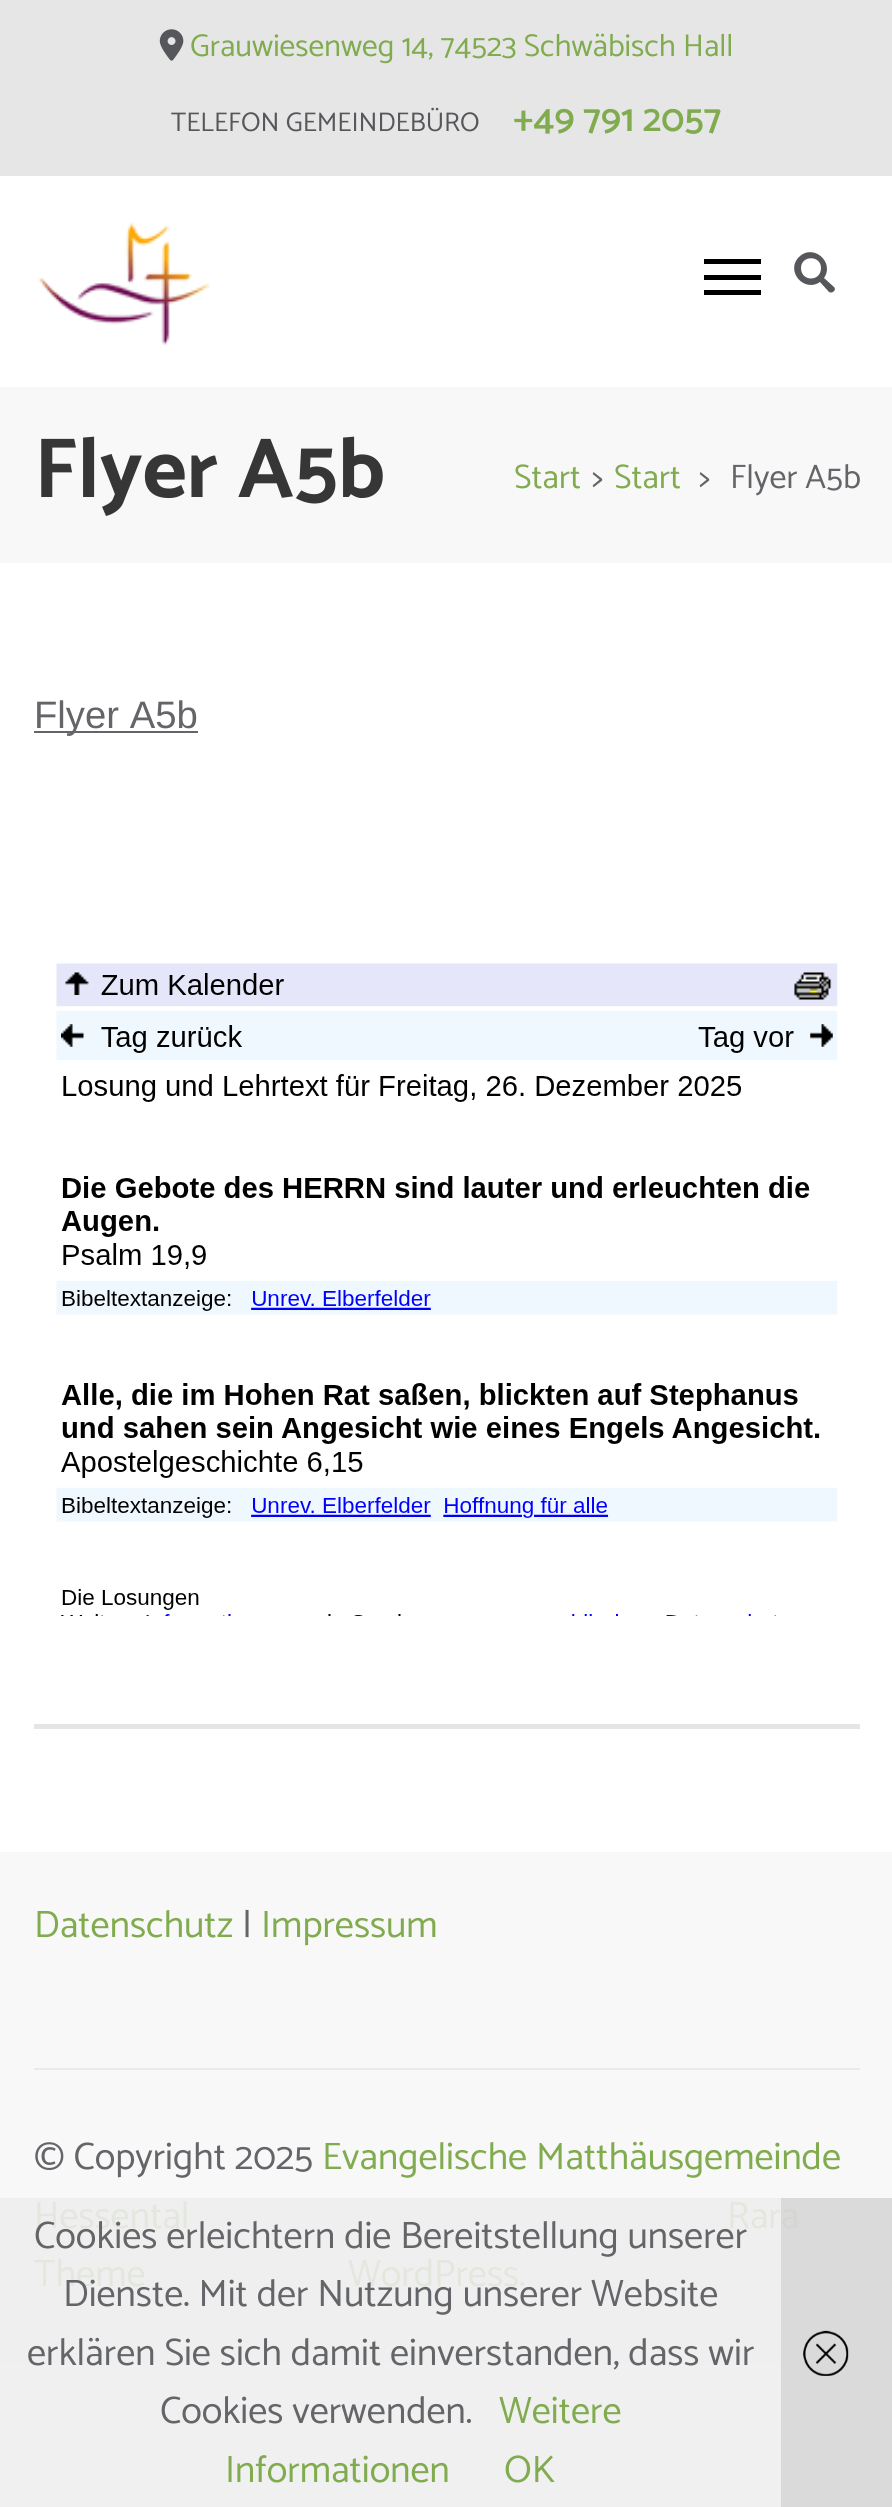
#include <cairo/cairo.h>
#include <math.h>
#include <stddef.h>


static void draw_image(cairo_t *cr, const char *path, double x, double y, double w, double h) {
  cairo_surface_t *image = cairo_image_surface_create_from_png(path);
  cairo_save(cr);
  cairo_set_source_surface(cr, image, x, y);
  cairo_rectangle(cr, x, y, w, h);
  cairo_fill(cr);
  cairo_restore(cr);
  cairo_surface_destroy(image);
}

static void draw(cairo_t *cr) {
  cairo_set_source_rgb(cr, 1, 1, 1);
  cairo_paint(cr);
  cairo_set_source_rgb(cr, 240 / 255.0, 240 / 255.0, 240 / 255.0);
  cairo_rectangle(cr, 0, 2363, 892, 144);
  cairo_fill(cr);
  cairo_set_source_rgb(cr, 230 / 255.0, 230 / 255.0, 230 / 255.0);
  cairo_rectangle(cr, 0, 0, 892, 176);
  cairo_fill(cr);
  draw_image(cr, "images/1.png", 159, 29, 25, 32);
  draw_image(cr, "images/2.png", 38, 222, 172, 123);
  cairo_set_source_rgb(cr, 0, 0, 0);
  cairo_rectangle(cr, 704, 259, 57, 5);
  cairo_fill(cr);
  cairo_rectangle(cr, 704, 275, 57, 5);
  cairo_fill(cr);
  cairo_rectangle(cr, 704, 290, 57, 5);
  cairo_fill(cr);
  cairo_set_source_rgb(cr, 86 / 255.0, 87 / 255.0, 90 / 255.0);
  cairo_new_path(cr);
  cairo_move_to(cr, 834, 287);
  cairo_line_to(cr, 824, 278);
  cairo_curve_to(cr, 835, 262, 813, 243, 799, 257);
  cairo_curve_to(cr, 785, 271, 804, 293, 820, 282);
  cairo_line_to(cr, 829, 292);
  cairo_curve_to(cr, 832, 294, 837, 290, 834, 287);
  cairo_close_path(cr);
  cairo_move_to(cr, 801, 268);
  cairo_curve_to(cr, 801, 255, 821, 255, 821, 268);
  cairo_curve_to(cr, 821, 282, 801, 282, 801, 268);
  cairo_close_path(cr);
  cairo_fill(cr);
  cairo_set_source_rgb(cr, 248 / 255.0, 248 / 255.0, 248 / 255.0);
  cairo_rectangle(cr, 0, 387, 892, 176);
  cairo_fill(cr);
  cairo_set_source_rgb(cr, 100 / 255.0, 101 / 255.0, 105 / 255.0);
  cairo_rectangle(cr, 34, 731, 164, 2);
  cairo_fill(cr);
  cairo_set_source_rgb(cr, 229 / 255.0, 229 / 255.0, 229 / 255.0);
  cairo_rectangle(cr, 34, 1724, 826, 5);
  cairo_fill(cr);
  draw_image(cr, "images/3.png", 56, 963, 782, 653);
  cairo_set_source_rgb(cr, 248 / 255.0, 248 / 255.0, 248 / 255.0);
  cairo_rectangle(cr, 0, 1852, 892, 346);
  cairo_fill(cr);
  cairo_set_source_rgb(cr, 239 / 255.0, 239 / 255.0, 239 / 255.0);
  cairo_rectangle(cr, 0, 2198, 892, 165);
  cairo_fill(cr);
  cairo_set_source_rgb(cr, 234 / 255.0, 234 / 255.0, 235 / 255.0);
  cairo_rectangle(cr, 34, 2068, 826, 2);
  cairo_fill(cr);
  cairo_select_font_face(cr, "Catamaran", CAIRO_FONT_SLANT_NORMAL, CAIRO_FONT_WEIGHT_NORMAL);
  cairo_set_font_size(cr, 31.5);
  cairo_set_source_rgb(cr, 128 / 255.0, 171 / 255.0, 78 / 255.0);
  cairo_move_to(cr, 190, 56);
  cairo_show_text(cr, "Grauwiesenweg 14, 74523 Schwäbisch Hall");
  cairo_set_font_size(cr, 27);
  cairo_set_source_rgb(cr, 86 / 255.0, 87 / 255.0, 90 / 255.0);
  cairo_move_to(cr, 171, 131);
  cairo_show_text(cr, "TELEFON GEMEINDEBÜRO");
  cairo_select_font_face(cr, "Catamaran SemiBold", CAIRO_FONT_SLANT_NORMAL, CAIRO_FONT_WEIGHT_NORMAL);
  cairo_set_font_size(cr, 38.25);
  cairo_set_source_rgb(cr, 128 / 255.0, 171 / 255.0, 78 / 255.0);
  cairo_move_to(cr, 513, 131);
  cairo_show_text(cr, "+49 791 2057");
  cairo_select_font_face(cr, "Catamaran", CAIRO_FONT_SLANT_NORMAL, CAIRO_FONT_WEIGHT_BOLD);
  cairo_set_font_size(cr, 85.5);
  cairo_set_source_rgb(cr, 54 / 255.0, 54 / 255.0, 54 / 255.0);
  cairo_move_to(cr, 34, 497);
  cairo_show_text(cr, "Flyer A5b");
  cairo_select_font_face(cr, "Catamaran", CAIRO_FONT_SLANT_NORMAL, CAIRO_FONT_WEIGHT_NORMAL);
  cairo_set_font_size(cr, 34);
  cairo_set_source_rgb(cr, 128 / 255.0, 171 / 255.0, 78 / 255.0);
  cairo_move_to(cr, 514, 488);
  cairo_show_text(cr, "Start");
  cairo_set_source_rgb(cr, 100 / 255.0, 101 / 255.0, 105 / 255.0);
  cairo_move_to(cr, 592, 488);
  cairo_show_text(cr, ">");
  cairo_set_source_rgb(cr, 128 / 255.0, 171 / 255.0, 78 / 255.0);
  cairo_move_to(cr, 614, 488);
  cairo_show_text(cr, "Start");
  cairo_set_source_rgb(cr, 100 / 255.0, 101 / 255.0, 105 / 255.0);
  cairo_move_to(cr, 699, 488);
  cairo_show_text(cr, ">");
  cairo_move_to(cr, 730, 488);
  cairo_show_text(cr, "Flyer A5b");
  cairo_select_font_face(cr, "Liberation Sans", CAIRO_FONT_SLANT_NORMAL, CAIRO_FONT_WEIGHT_NORMAL);
  cairo_set_font_size(cr, 38.25);
  cairo_move_to(cr, 34, 728);
  cairo_show_text(cr, "Flyer A5b");
  cairo_select_font_face(cr, "Catamaran", CAIRO_FONT_SLANT_NORMAL, CAIRO_FONT_WEIGHT_NORMAL);
  cairo_set_source_rgb(cr, 128 / 255.0, 171 / 255.0, 78 / 255.0);
  cairo_move_to(cr, 34, 1937);
  cairo_show_text(cr, "Datenschutz");
  cairo_set_source_rgb(cr, 100 / 255.0, 101 / 255.0, 105 / 255.0);
  cairo_move_to(cr, 242, 1937);
  cairo_show_text(cr, "|");
  cairo_set_source_rgb(cr, 128 / 255.0, 171 / 255.0, 78 / 255.0);
  cairo_move_to(cr, 261, 1937);
  cairo_show_text(cr, "Impressum");
  cairo_set_source_rgb(cr, 100 / 255.0, 101 / 255.0, 105 / 255.0);
  cairo_move_to(cr, 34, 2169);
  cairo_show_text(cr, "© Copyright 2025");
  cairo_set_source_rgb(cr, 128 / 255.0, 171 / 255.0, 78 / 255.0);
  cairo_move_to(cr, 322, 2169);
  cairo_show_text(cr, "Evangelische Matthäusgemeinde");
  cairo_set_source_rgb(cr, 227 / 255.0, 231 / 255.0, 222 / 255.0);
  cairo_move_to(cr, 34, 2228);
  cairo_show_text(cr, "Hessental");
  cairo_move_to(cr, 727, 2228);
  cairo_show_text(cr, "Rara");
  cairo_move_to(cr, 34, 2286);
  cairo_show_text(cr, "Theme");
  cairo_move_to(cr, 348, 2286);
  cairo_show_text(cr, "WordPress.");
  cairo_set_source_rgb(cr, 100 / 255.0, 101 / 255.0, 105 / 255.0);
  cairo_move_to(cr, 34, 2248);
  cairo_show_text(cr, "Cookies erleichtern die Bereitstellung unserer");
  cairo_move_to(cr, 63, 2306);
  cairo_show_text(cr, "Dienste. Mit der Nutzung unserer Website");
  cairo_move_to(cr, 27, 2365);
  cairo_show_text(cr, "erklären Sie sich damit einverstanden, dass wir");
  cairo_move_to(cr, 160, 2423);
  cairo_show_text(cr, "Cookies verwenden.");
  cairo_set_source_rgb(cr, 128 / 255.0, 171 / 255.0, 78 / 255.0);
  cairo_move_to(cr, 499, 2423);
  cairo_show_text(cr, "Weitere");
  cairo_move_to(cr, 225, 2482);
  cairo_show_text(cr, "Informationen");
  cairo_move_to(cr, 504, 2482);
  cairo_show_text(cr, "OK");
  cairo_set_source_rgba(cr, 204 / 255.0, 204 / 255.0, 204 / 255.0, 0.6);
  cairo_rectangle(cr, 781, 2198, 111, 309);
  cairo_fill(cr);
  draw_image(cr, "images/4.png", 803, 2330, 46, 46);
}

int main(void) {
  cairo_surface_t *surface = cairo_image_surface_create(CAIRO_FORMAT_RGB24, 892, 2507);
  cairo_t *cr = cairo_create(surface);
  cairo_font_options_t *options = cairo_font_options_create();
  cairo_font_options_set_hint_metrics(options, CAIRO_HINT_METRICS_OFF);
  cairo_font_options_set_hint_style(options, CAIRO_HINT_STYLE_NONE);
  cairo_set_font_options(cr, options);
  cairo_set_miter_limit(cr, 4);
  draw(cr);
  cairo_surface_write_to_png(surface, "out.png");
  cairo_font_options_destroy(options);
  cairo_destroy(cr);
  cairo_surface_destroy(surface);
  return 0;
}
